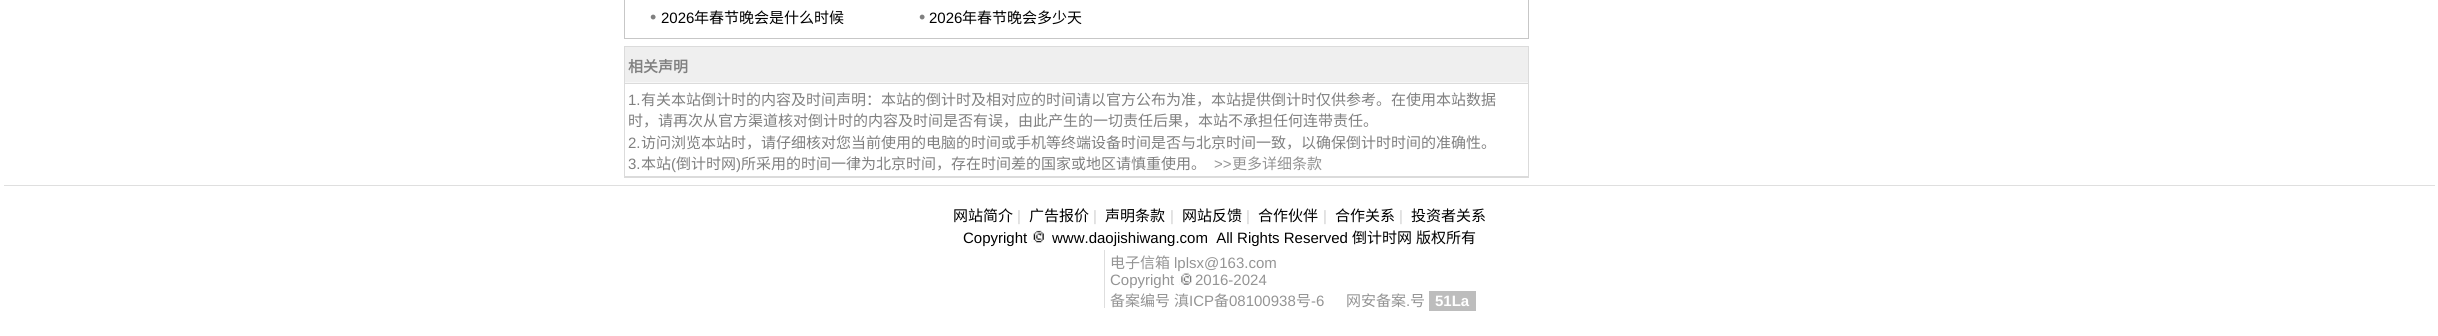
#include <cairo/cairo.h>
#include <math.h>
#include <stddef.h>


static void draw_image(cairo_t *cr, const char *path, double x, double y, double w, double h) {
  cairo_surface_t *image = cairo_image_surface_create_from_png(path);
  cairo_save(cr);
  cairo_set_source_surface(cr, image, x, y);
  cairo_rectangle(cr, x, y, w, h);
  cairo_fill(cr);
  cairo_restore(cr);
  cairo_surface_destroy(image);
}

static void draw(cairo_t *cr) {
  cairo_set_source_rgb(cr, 1, 1, 1);
  cairo_paint(cr);
  cairo_set_source_rgb(cr, 199 / 255.0, 199 / 255.0, 199 / 255.0);
  cairo_rectangle(cr, 624, 0, 905, 39);
  cairo_fill(cr);
  cairo_set_source_rgb(cr, 1, 1, 1);
  cairo_rectangle(cr, 625, 0, 903, 38);
  cairo_fill(cr);
  cairo_set_source_rgb(cr, 219 / 255.0, 219 / 255.0, 219 / 255.0);
  cairo_rectangle(cr, 624, 46, 905, 132);
  cairo_fill(cr);
  cairo_set_source_rgb(cr, 247 / 255.0, 247 / 255.0, 247 / 255.0);
  cairo_rectangle(cr, 625, 82, 903, 1);
  cairo_fill(cr);
  cairo_set_source_rgb(cr, 239 / 255.0, 239 / 255.0, 239 / 255.0);
  cairo_rectangle(cr, 625, 47, 903, 35);
  cairo_fill(cr);
  cairo_set_source_rgb(cr, 1, 1, 1);
  cairo_rectangle(cr, 625, 84, 903, 92);
  cairo_fill(cr);
  cairo_set_source_rgb(cr, 223 / 255.0, 223 / 255.0, 223 / 255.0);
  cairo_rectangle(cr, 4, 185, 2431, 1);
  cairo_fill(cr);
  draw_image(cr, "images/1.png", 1031, 230, 13, 13);
  cairo_set_source_rgb(cr, 222 / 255.0, 222 / 255.0, 222 / 255.0);
  cairo_rectangle(cr, 1104, 250, 1, 58);
  cairo_fill(cr);
  draw_image(cr, "images/2.png", 1179, 272, 13, 13);
  cairo_set_source_rgb(cr, 189 / 255.0, 189 / 255.0, 189 / 255.0);
  cairo_rectangle(cr, 1429, 291, 47, 20);
  cairo_fill(cr);
  cairo_select_font_face(cr, "Liberation Sans", CAIRO_FONT_SLANT_NORMAL, CAIRO_FONT_WEIGHT_NORMAL);
  cairo_set_font_size(cr, 18);
  cairo_set_source_rgb(cr, 128 / 255.0, 128 / 255.0, 128 / 255.0);
  cairo_move_to(cr, 650, 23);
  cairo_show_text(cr, "•");
  cairo_set_font_size(cr, 15);
  cairo_set_source_rgb(cr, 0, 0, 0);
  cairo_move_to(cr, 661, 23);
  cairo_show_text(cr, "2026");
  cairo_select_font_face(cr, "Noto Sans CJK SC", CAIRO_FONT_SLANT_NORMAL, CAIRO_FONT_WEIGHT_NORMAL);
  cairo_move_to(cr, 694, 23);
  cairo_show_text(cr, "年春节晚会是什么时候");
  cairo_select_font_face(cr, "Liberation Sans", CAIRO_FONT_SLANT_NORMAL, CAIRO_FONT_WEIGHT_NORMAL);
  cairo_set_font_size(cr, 18);
  cairo_set_source_rgb(cr, 128 / 255.0, 128 / 255.0, 128 / 255.0);
  cairo_move_to(cr, 919, 23);
  cairo_show_text(cr, "•");
  cairo_set_font_size(cr, 15);
  cairo_set_source_rgb(cr, 0, 0, 0);
  cairo_move_to(cr, 929, 23);
  cairo_show_text(cr, "2026");
  cairo_select_font_face(cr, "Noto Sans CJK SC", CAIRO_FONT_SLANT_NORMAL, CAIRO_FONT_WEIGHT_NORMAL);
  cairo_move_to(cr, 962, 23);
  cairo_show_text(cr, "年春节晚会多少天");
  cairo_select_font_face(cr, "Noto Sans CJK SC", CAIRO_FONT_SLANT_NORMAL, CAIRO_FONT_WEIGHT_BOLD);
  cairo_set_source_rgb(cr, 128 / 255.0, 128 / 255.0, 128 / 255.0);
  cairo_move_to(cr, 628, 72);
  cairo_show_text(cr, "相关声明");
  cairo_select_font_face(cr, "Liberation Sans", CAIRO_FONT_SLANT_NORMAL, CAIRO_FONT_WEIGHT_NORMAL);
  cairo_move_to(cr, 628, 105);
  cairo_show_text(cr, "1.");
  cairo_select_font_face(cr, "Noto Sans CJK SC", CAIRO_FONT_SLANT_NORMAL, CAIRO_FONT_WEIGHT_NORMAL);
  cairo_move_to(cr, 641, 105);
  cairo_show_text(cr, "有关本站倒计时的内容及时间声明：本站的倒计时及相对应的时间请以官方公布为准，本站提供倒计时仅供参考。在使用本站数据");
  cairo_move_to(cr, 628, 126);
  cairo_show_text(cr, "时，请再次从官方渠道核对倒计时的内容及时间是否有误，由此产生的一切责任后果，本站不承担任何连带责任。");
  cairo_select_font_face(cr, "Liberation Sans", CAIRO_FONT_SLANT_NORMAL, CAIRO_FONT_WEIGHT_NORMAL);
  cairo_move_to(cr, 628, 148);
  cairo_show_text(cr, "2.");
  cairo_select_font_face(cr, "Noto Sans CJK SC", CAIRO_FONT_SLANT_NORMAL, CAIRO_FONT_WEIGHT_NORMAL);
  cairo_move_to(cr, 641, 148);
  cairo_show_text(cr, "访问浏览本站时，请仔细核对您当前使用的电脑的时间或手机等终端设备时间是否与北京时间一致，以确保倒计时时间的准确性。");
  cairo_select_font_face(cr, "Liberation Sans", CAIRO_FONT_SLANT_NORMAL, CAIRO_FONT_WEIGHT_NORMAL);
  cairo_move_to(cr, 628, 169);
  cairo_show_text(cr, "3.");
  cairo_select_font_face(cr, "Noto Sans CJK SC", CAIRO_FONT_SLANT_NORMAL, CAIRO_FONT_WEIGHT_NORMAL);
  cairo_move_to(cr, 641, 169);
  cairo_show_text(cr, "本站");
  cairo_select_font_face(cr, "Liberation Sans", CAIRO_FONT_SLANT_NORMAL, CAIRO_FONT_WEIGHT_NORMAL);
  cairo_move_to(cr, 671, 169);
  cairo_show_text(cr, "(");
  cairo_select_font_face(cr, "Noto Sans CJK SC", CAIRO_FONT_SLANT_NORMAL, CAIRO_FONT_WEIGHT_NORMAL);
  cairo_move_to(cr, 676, 169);
  cairo_show_text(cr, "倒计时网");
  cairo_select_font_face(cr, "Liberation Sans", CAIRO_FONT_SLANT_NORMAL, CAIRO_FONT_WEIGHT_NORMAL);
  cairo_move_to(cr, 736, 169);
  cairo_show_text(cr, ")");
  cairo_select_font_face(cr, "Noto Sans CJK SC", CAIRO_FONT_SLANT_NORMAL, CAIRO_FONT_WEIGHT_NORMAL);
  cairo_move_to(cr, 741, 169);
  cairo_show_text(cr, "所采用的时间一律为北京时间，存在时间差的国家或地区请慎重使用。");
  cairo_select_font_face(cr, "Liberation Sans", CAIRO_FONT_SLANT_NORMAL, CAIRO_FONT_WEIGHT_NORMAL);
  cairo_set_source_rgb(cr, 148 / 255.0, 148 / 255.0, 148 / 255.0);
  cairo_move_to(cr, 1214, 169);
  cairo_show_text(cr, ">>");
  cairo_select_font_face(cr, "Noto Sans CJK SC", CAIRO_FONT_SLANT_NORMAL, CAIRO_FONT_WEIGHT_NORMAL);
  cairo_move_to(cr, 1232, 169);
  cairo_show_text(cr, "更多详细条款");
  cairo_set_source_rgb(cr, 0, 0, 0);
  cairo_move_to(cr, 953, 221);
  cairo_show_text(cr, "网站简介");
  cairo_select_font_face(cr, "Liberation Sans", CAIRO_FONT_SLANT_NORMAL, CAIRO_FONT_WEIGHT_NORMAL);
  cairo_set_source_rgb(cr, 209 / 255.0, 209 / 255.0, 209 / 255.0);
  cairo_move_to(cr, 1017, 221);
  cairo_show_text(cr, "|");
  cairo_select_font_face(cr, "Noto Sans CJK SC", CAIRO_FONT_SLANT_NORMAL, CAIRO_FONT_WEIGHT_NORMAL);
  cairo_set_source_rgb(cr, 0, 0, 0);
  cairo_move_to(cr, 1029, 221);
  cairo_show_text(cr, "广告报价");
  cairo_select_font_face(cr, "Liberation Sans", CAIRO_FONT_SLANT_NORMAL, CAIRO_FONT_WEIGHT_NORMAL);
  cairo_set_source_rgb(cr, 209 / 255.0, 209 / 255.0, 209 / 255.0);
  cairo_move_to(cr, 1093, 221);
  cairo_show_text(cr, "|");
  cairo_select_font_face(cr, "Noto Sans CJK SC", CAIRO_FONT_SLANT_NORMAL, CAIRO_FONT_WEIGHT_NORMAL);
  cairo_set_source_rgb(cr, 0, 0, 0);
  cairo_move_to(cr, 1105, 221);
  cairo_show_text(cr, "声明条款");
  cairo_select_font_face(cr, "Liberation Sans", CAIRO_FONT_SLANT_NORMAL, CAIRO_FONT_WEIGHT_NORMAL);
  cairo_set_source_rgb(cr, 209 / 255.0, 209 / 255.0, 209 / 255.0);
  cairo_move_to(cr, 1170, 221);
  cairo_show_text(cr, "|");
  cairo_select_font_face(cr, "Noto Sans CJK SC", CAIRO_FONT_SLANT_NORMAL, CAIRO_FONT_WEIGHT_NORMAL);
  cairo_set_source_rgb(cr, 0, 0, 0);
  cairo_move_to(cr, 1182, 221);
  cairo_show_text(cr, "网站反馈");
  cairo_select_font_face(cr, "Liberation Sans", CAIRO_FONT_SLANT_NORMAL, CAIRO_FONT_WEIGHT_NORMAL);
  cairo_set_source_rgb(cr, 209 / 255.0, 209 / 255.0, 209 / 255.0);
  cairo_move_to(cr, 1246, 221);
  cairo_show_text(cr, "|");
  cairo_select_font_face(cr, "Noto Sans CJK SC", CAIRO_FONT_SLANT_NORMAL, CAIRO_FONT_WEIGHT_NORMAL);
  cairo_set_source_rgb(cr, 0, 0, 0);
  cairo_move_to(cr, 1258, 221);
  cairo_show_text(cr, "合作伙伴");
  cairo_select_font_face(cr, "Liberation Sans", CAIRO_FONT_SLANT_NORMAL, CAIRO_FONT_WEIGHT_NORMAL);
  cairo_set_source_rgb(cr, 209 / 255.0, 209 / 255.0, 209 / 255.0);
  cairo_move_to(cr, 1323, 221);
  cairo_show_text(cr, "|");
  cairo_select_font_face(cr, "Noto Sans CJK SC", CAIRO_FONT_SLANT_NORMAL, CAIRO_FONT_WEIGHT_NORMAL);
  cairo_set_source_rgb(cr, 0, 0, 0);
  cairo_move_to(cr, 1335, 221);
  cairo_show_text(cr, "合作关系");
  cairo_select_font_face(cr, "Liberation Sans", CAIRO_FONT_SLANT_NORMAL, CAIRO_FONT_WEIGHT_NORMAL);
  cairo_set_source_rgb(cr, 209 / 255.0, 209 / 255.0, 209 / 255.0);
  cairo_move_to(cr, 1399, 221);
  cairo_show_text(cr, "|");
  cairo_select_font_face(cr, "Noto Sans CJK SC", CAIRO_FONT_SLANT_NORMAL, CAIRO_FONT_WEIGHT_NORMAL);
  cairo_set_source_rgb(cr, 0, 0, 0);
  cairo_move_to(cr, 1411, 221);
  cairo_show_text(cr, "投资者关系");
  cairo_select_font_face(cr, "Liberation Sans", CAIRO_FONT_SLANT_NORMAL, CAIRO_FONT_WEIGHT_NORMAL);
  cairo_move_to(cr, 963, 243);
  cairo_show_text(cr, "Copyright");
  cairo_move_to(cr, 1052, 243);
  cairo_show_text(cr, "www.daojishiwang.com  All Rights Reserved");
  cairo_select_font_face(cr, "Noto Sans CJK SC", CAIRO_FONT_SLANT_NORMAL, CAIRO_FONT_WEIGHT_NORMAL);
  cairo_move_to(cr, 1352, 243);
  cairo_show_text(cr, "倒计时网");
  cairo_move_to(cr, 1416, 243);
  cairo_show_text(cr, "版权所有");
  cairo_set_source_rgb(cr, 148 / 255.0, 148 / 255.0, 148 / 255.0);
  cairo_move_to(cr, 1110, 268);
  cairo_show_text(cr, "电子信箱");
  cairo_select_font_face(cr, "Liberation Sans", CAIRO_FONT_SLANT_NORMAL, CAIRO_FONT_WEIGHT_NORMAL);
  cairo_move_to(cr, 1174, 268);
  cairo_show_text(cr, "lplsx@163.com");
  cairo_move_to(cr, 1110, 285);
  cairo_show_text(cr, "Copyright");
  cairo_move_to(cr, 1195, 285);
  cairo_show_text(cr, "2016-2024");
  cairo_select_font_face(cr, "Noto Sans CJK SC", CAIRO_FONT_SLANT_NORMAL, CAIRO_FONT_WEIGHT_NORMAL);
  cairo_move_to(cr, 1110, 306);
  cairo_show_text(cr, "备案编号");
  cairo_move_to(cr, 1174, 306);
  cairo_show_text(cr, "滇");
  cairo_select_font_face(cr, "Liberation Sans", CAIRO_FONT_SLANT_NORMAL, CAIRO_FONT_WEIGHT_NORMAL);
  cairo_move_to(cr, 1189, 306);
  cairo_show_text(cr, "ICP");
  cairo_select_font_face(cr, "Noto Sans CJK SC", CAIRO_FONT_SLANT_NORMAL, CAIRO_FONT_WEIGHT_NORMAL);
  cairo_move_to(cr, 1214, 306);
  cairo_show_text(cr, "备");
  cairo_select_font_face(cr, "Liberation Sans", CAIRO_FONT_SLANT_NORMAL, CAIRO_FONT_WEIGHT_NORMAL);
  cairo_move_to(cr, 1229, 306);
  cairo_show_text(cr, "08100938");
  cairo_select_font_face(cr, "Noto Sans CJK SC", CAIRO_FONT_SLANT_NORMAL, CAIRO_FONT_WEIGHT_NORMAL);
  cairo_move_to(cr, 1296, 306);
  cairo_show_text(cr, "号");
  cairo_select_font_face(cr, "Liberation Sans", CAIRO_FONT_SLANT_NORMAL, CAIRO_FONT_WEIGHT_NORMAL);
  cairo_move_to(cr, 1311, 306);
  cairo_show_text(cr, "-6");
  cairo_select_font_face(cr, "Noto Sans CJK SC", CAIRO_FONT_SLANT_NORMAL, CAIRO_FONT_WEIGHT_NORMAL);
  cairo_move_to(cr, 1346, 306);
  cairo_show_text(cr, "网安备案");
  cairo_select_font_face(cr, "Liberation Sans", CAIRO_FONT_SLANT_NORMAL, CAIRO_FONT_WEIGHT_NORMAL);
  cairo_move_to(cr, 1406, 306);
  cairo_show_text(cr, ".");
  cairo_select_font_face(cr, "Noto Sans CJK SC", CAIRO_FONT_SLANT_NORMAL, CAIRO_FONT_WEIGHT_NORMAL);
  cairo_move_to(cr, 1410, 306);
  cairo_show_text(cr, "号");
  cairo_select_font_face(cr, "Liberation Sans", CAIRO_FONT_SLANT_NORMAL, CAIRO_FONT_WEIGHT_BOLD);
  cairo_set_source_rgb(cr, 1, 1, 1);
  cairo_move_to(cr, 1435, 306);
  cairo_show_text(cr, "51La");
}

int main(void) {
  cairo_surface_t *surface = cairo_image_surface_create(CAIRO_FORMAT_RGB24, 2438, 336);
  cairo_t *cr = cairo_create(surface);
  cairo_font_options_t *options = cairo_font_options_create();
  cairo_font_options_set_hint_metrics(options, CAIRO_HINT_METRICS_OFF);
  cairo_font_options_set_hint_style(options, CAIRO_HINT_STYLE_NONE);
  cairo_set_font_options(cr, options);
  cairo_set_miter_limit(cr, 4);
  draw(cr);
  cairo_surface_write_to_png(surface, "out.png");
  cairo_font_options_destroy(options);
  cairo_destroy(cr);
  cairo_surface_destroy(surface);
  return 0;
}
